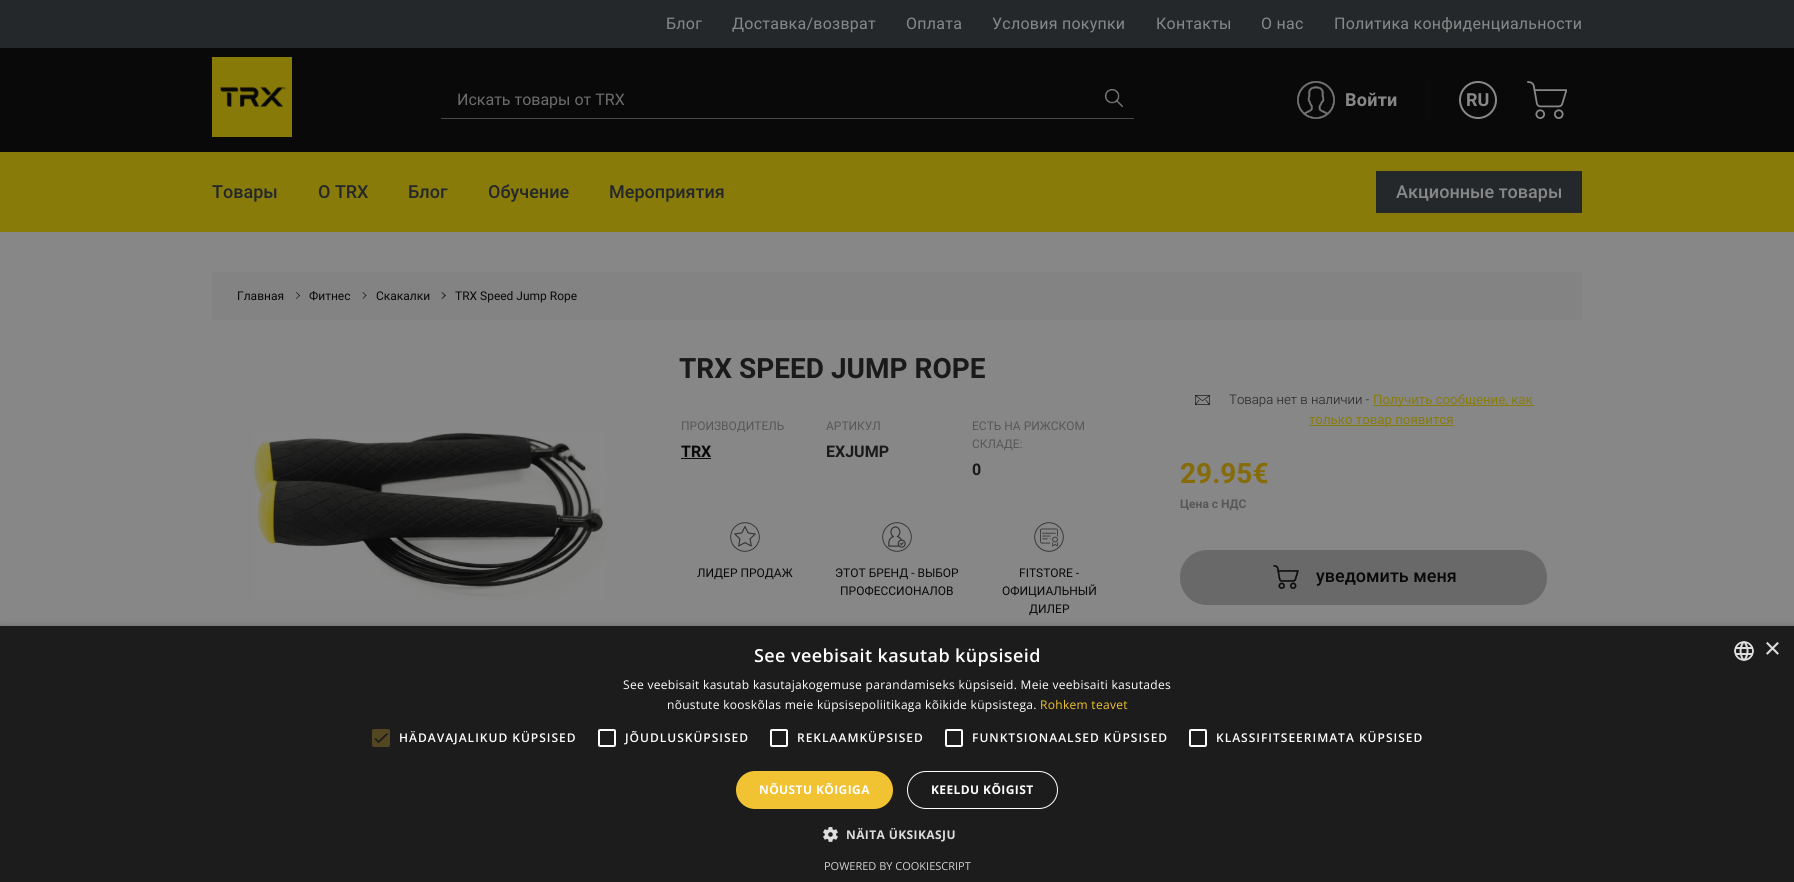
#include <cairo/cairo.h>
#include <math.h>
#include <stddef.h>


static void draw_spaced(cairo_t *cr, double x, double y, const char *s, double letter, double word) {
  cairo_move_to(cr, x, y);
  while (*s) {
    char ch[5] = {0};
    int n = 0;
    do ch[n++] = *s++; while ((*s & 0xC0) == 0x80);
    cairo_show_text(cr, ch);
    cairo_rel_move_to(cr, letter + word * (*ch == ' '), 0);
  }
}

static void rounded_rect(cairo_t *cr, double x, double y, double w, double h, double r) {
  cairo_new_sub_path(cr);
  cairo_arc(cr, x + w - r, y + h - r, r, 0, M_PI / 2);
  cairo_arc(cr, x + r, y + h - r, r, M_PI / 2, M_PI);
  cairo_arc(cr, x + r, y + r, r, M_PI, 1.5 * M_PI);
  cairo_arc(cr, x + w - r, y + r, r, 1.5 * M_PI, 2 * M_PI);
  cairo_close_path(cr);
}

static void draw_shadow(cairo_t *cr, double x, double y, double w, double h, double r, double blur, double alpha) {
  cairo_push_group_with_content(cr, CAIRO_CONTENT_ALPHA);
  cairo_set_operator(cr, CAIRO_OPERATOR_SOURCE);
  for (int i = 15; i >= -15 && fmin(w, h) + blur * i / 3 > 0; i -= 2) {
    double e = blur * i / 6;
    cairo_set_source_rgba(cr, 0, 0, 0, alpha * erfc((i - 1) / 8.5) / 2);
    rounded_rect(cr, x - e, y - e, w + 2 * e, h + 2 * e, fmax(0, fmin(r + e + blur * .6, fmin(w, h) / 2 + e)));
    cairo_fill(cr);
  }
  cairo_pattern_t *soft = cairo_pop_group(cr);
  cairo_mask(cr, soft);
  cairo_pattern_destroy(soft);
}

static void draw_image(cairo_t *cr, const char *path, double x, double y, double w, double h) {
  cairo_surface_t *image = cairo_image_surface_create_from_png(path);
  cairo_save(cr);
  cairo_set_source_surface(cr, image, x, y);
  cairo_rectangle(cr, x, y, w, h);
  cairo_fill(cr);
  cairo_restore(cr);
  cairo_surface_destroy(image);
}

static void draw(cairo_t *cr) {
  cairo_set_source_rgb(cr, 135 / 255.0, 135 / 255.0, 135 / 255.0);
  cairo_paint(cr);
  cairo_set_source_rgb(cr, 36 / 255.0, 40 / 255.0, 42 / 255.0);
  cairo_rectangle(cr, 0, 0, 1794, 48);
  cairo_fill(cr);
  cairo_set_source_rgb(cr, 9 / 255.0, 9 / 255.0, 9 / 255.0);
  cairo_rectangle(cr, 0, 48, 1794, 104);
  cairo_fill(cr);
  draw_image(cr, "images/1.png", 212, 57, 80, 80);
  cairo_set_source_rgb(cr, 73 / 255.0, 73 / 255.0, 73 / 255.0);
  cairo_rectangle(cr, 441, 118, 693, 1);
  cairo_fill(cr);
  draw_image(cr, "images/2.png", 1105, 89, 18, 18);
  draw_image(cr, "images/3.png", 1297, 81, 38, 38);
  cairo_set_source_rgb(cr, 13 / 255.0, 13 / 255.0, 13 / 255.0);
  cairo_rectangle(cr, 1428, 81, 1, 38);
  cairo_fill(cr);
  cairo_arc(cr, 1478, 100, 18, 0, 2 * M_PI);
  cairo_set_source_rgb(cr, 136 / 255.0, 136 / 255.0, 136 / 255.0);
  cairo_stroke(cr);
  draw_image(cr, "images/4.png", 1527, 81, 40, 38);
  cairo_set_source_rgb(cr, 136 / 255.0, 123 / 255.0, 9 / 255.0);
  cairo_rectangle(cr, 0, 152, 1794, 80);
  cairo_fill(cr);
  cairo_set_source_rgb(cr, 36 / 255.0, 40 / 255.0, 42 / 255.0);
  cairo_rectangle(cr, 1376, 171, 206, 42);
  cairo_fill(cr);
  cairo_set_source_rgb(cr, 131 / 255.0, 131 / 255.0, 131 / 255.0);
  cairo_rectangle(cr, 212, 272, 1370, 48);
  cairo_fill(cr);
  cairo_set_source_rgb(cr, 26 / 255.0, 26 / 255.0, 26 / 255.0);
  cairo_new_path(cr);
  cairo_move_to(cr, 296, 292.5);
  cairo_line_to(cr, 296.5, 292);
  cairo_line_to(cr, 300, 295.5);
  cairo_line_to(cr, 299.5, 296);
  cairo_close_path(cr);
  cairo_fill(cr);
  cairo_new_path(cr);
  cairo_move_to(cr, 296, 298.5);
  cairo_line_to(cr, 299.5, 295);
  cairo_line_to(cr, 300, 295.5);
  cairo_line_to(cr, 296.5, 299);
  cairo_close_path(cr);
  cairo_fill(cr);
  cairo_new_path(cr);
  cairo_move_to(cr, 362.5, 292.5);
  cairo_line_to(cr, 363, 292);
  cairo_line_to(cr, 366.5, 295.5);
  cairo_line_to(cr, 366, 296);
  cairo_close_path(cr);
  cairo_fill(cr);
  cairo_new_path(cr);
  cairo_move_to(cr, 362.5, 298.5);
  cairo_line_to(cr, 366, 295);
  cairo_line_to(cr, 366.5, 295.5);
  cairo_line_to(cr, 363, 299);
  cairo_close_path(cr);
  cairo_fill(cr);
  cairo_new_path(cr);
  cairo_move_to(cr, 441.5, 292.5);
  cairo_line_to(cr, 442, 292);
  cairo_line_to(cr, 446, 295.5);
  cairo_line_to(cr, 445, 296);
  cairo_close_path(cr);
  cairo_fill(cr);
  cairo_new_path(cr);
  cairo_move_to(cr, 441.5, 298.5);
  cairo_line_to(cr, 445, 295);
  cairo_line_to(cr, 446, 295.5);
  cairo_line_to(cr, 442, 299);
  cairo_close_path(cr);
  cairo_fill(cr);
  draw_image(cr, "images/5.png", 253, 432, 353, 168);
  cairo_set_source_rgb(cr, 9 / 255.0, 9 / 255.0, 9 / 255.0);
  cairo_rectangle(cr, 681, 458, 30, 1);
  cairo_fill(cr);
  draw_image(cr, "images/6.png", 730, 522, 30, 30);
  draw_image(cr, "images/7.png", 882, 522, 30, 30);
  draw_image(cr, "images/8.png", 1034, 522, 30, 30);
  draw_image(cr, "images/9.png", 1195, 395, 15, 10);
  cairo_set_source_rgb(cr, 136 / 255.0, 123 / 255.0, 9 / 255.0);
  cairo_rectangle(cr, 1373, 405, 161, 1);
  cairo_fill(cr);
  cairo_rectangle(cr, 1309, 425, 145, 1);
  cairo_fill(cr);
  cairo_set_source_rgb(cr, 105 / 255.0, 105 / 255.0, 105 / 255.0);
  rounded_rect(cr, 1180, 550, 367, 55, 27);
  cairo_fill(cr);
  draw_image(cr, "images/10.png", 1273, 565, 26, 24);
  cairo_set_source_rgb(cr, 0, 0, 0);
  draw_shadow(cr, 1, 628, 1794, 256, 0, 4, 0.35);
  cairo_set_source_rgb(cr, 28 / 255.0, 28 / 255.0, 28 / 255.0);
  cairo_rectangle(cr, 0, 626, 1794, 256);
  cairo_fill(cr);
  draw_image(cr, "images/11.png", 1734, 641, 20, 20);
  cairo_set_source_rgb(cr, 83 / 255.0, 71 / 255.0, 34 / 255.0);
  rounded_rect(cr, 372, 729, 18, 18, 2);
  cairo_fill(cr);
  cairo_new_path(cr);
  cairo_move_to(cr, 375, 738.5);
  cairo_line_to(cr, 378.5, 742);
  cairo_line_to(cr, 387.5, 733.5);
  cairo_set_source_rgb(cr, 28 / 255.0, 28 / 255.0, 28 / 255.0);
  cairo_set_line_width(cr, 1.8);
  cairo_stroke(cr);
  rounded_rect(cr, 599, 730, 16, 16, 1);
  cairo_set_source_rgb(cr, 1, 1, 1);
  cairo_set_line_width(cr, 2);
  cairo_stroke(cr);
  rounded_rect(cr, 771, 730, 16, 16, 1);
  cairo_stroke(cr);
  rounded_rect(cr, 946, 730, 16, 16, 1);
  cairo_stroke(cr);
  rounded_rect(cr, 1190, 730, 16, 16, 1);
  cairo_stroke(cr);
  cairo_set_source_rgb(cr, 241 / 255.0, 194 / 255.0, 50 / 255.0);
  rounded_rect(cr, 736, 771, 157, 38, 19);
  cairo_fill(cr);
  rounded_rect(cr, 907.5, 771.5, 150, 37, 18.5);
  cairo_set_source_rgb(cr, 1, 1, 1);
  cairo_set_line_width(cr, 1);
  cairo_stroke(cr);
  draw_image(cr, "images/12.png", 823, 827, 15, 15);
  cairo_select_font_face(cr, "Roboto", CAIRO_FONT_SLANT_NORMAL, CAIRO_FONT_WEIGHT_NORMAL);
  cairo_set_font_size(cr, 16);
  cairo_set_source_rgb(cr, 136 / 255.0, 136 / 255.0, 136 / 255.0);
  draw_spaced(cr, 666, 29, "Блог", 0.25, 0);
  draw_spaced(cr, 732, 29, "Доставка/возврат", 0.25, 0);
  draw_spaced(cr, 906, 29, "Оплата", 0.25, 0);
  draw_spaced(cr, 992, 29, "Условия покупки", 0.25, 0);
  draw_spaced(cr, 1156, 29, "Контакты", 0.25, 0);
  draw_spaced(cr, 1261, 29, "О нас", 0.25, 0);
  draw_spaced(cr, 1334, 29, "Политика конфиденциальности", 0.25, 0);
  cairo_set_source_rgb(cr, 108 / 255.0, 108 / 255.0, 108 / 255.0);
  cairo_move_to(cr, 457, 105);
  cairo_show_text(cr, "Искать товары от TRX");
  cairo_select_font_face(cr, "Roboto", CAIRO_FONT_SLANT_NORMAL, CAIRO_FONT_WEIGHT_BOLD);
  cairo_set_font_size(cr, 18);
  cairo_set_source_rgb(cr, 136 / 255.0, 136 / 255.0, 136 / 255.0);
  draw_spaced(cr, 1345, 106, "Войти", 0.25, 0);
  cairo_move_to(cr, 1466, 106);
  cairo_show_text(cr, "RU");
  cairo_select_font_face(cr, "Roboto Medium", CAIRO_FONT_SLANT_NORMAL, CAIRO_FONT_WEIGHT_NORMAL);
  cairo_set_source_rgb(cr, 36 / 255.0, 40 / 255.0, 42 / 255.0);
  cairo_move_to(cr, 212, 198);
  cairo_show_text(cr, "Товары");
  cairo_move_to(cr, 318, 198);
  cairo_show_text(cr, "О TRX");
  cairo_move_to(cr, 408, 198);
  cairo_show_text(cr, "Блог");
  cairo_move_to(cr, 488, 198);
  cairo_show_text(cr, "Обучение");
  cairo_move_to(cr, 609, 198);
  cairo_show_text(cr, "Мероприятия");
  cairo_set_source_rgb(cr, 136 / 255.0, 136 / 255.0, 136 / 255.0);
  cairo_move_to(cr, 1396, 198);
  cairo_show_text(cr, "Акционные товары");
  cairo_select_font_face(cr, "Roboto", CAIRO_FONT_SLANT_NORMAL, CAIRO_FONT_WEIGHT_NORMAL);
  cairo_set_font_size(cr, 12);
  cairo_set_source_rgb(cr, 9 / 255.0, 9 / 255.0, 9 / 255.0);
  cairo_move_to(cr, 237, 300);
  cairo_show_text(cr, "Главная");
  cairo_move_to(cr, 309, 300);
  cairo_show_text(cr, "Фитнес");
  cairo_move_to(cr, 376, 300);
  cairo_show_text(cr, "Скакалки");
  cairo_move_to(cr, 455, 300);
  cairo_show_text(cr, "TRX Speed Jump Rope");
  cairo_select_font_face(cr, "Roboto", CAIRO_FONT_SLANT_NORMAL, CAIRO_FONT_WEIGHT_BOLD);
  cairo_set_font_size(cr, 28);
  cairo_set_source_rgb(cr, 26 / 255.0, 26 / 255.0, 26 / 255.0);
  cairo_move_to(cr, 679, 378);
  cairo_show_text(cr, "TRX SPEED JUMP ROPE");
  cairo_select_font_face(cr, "Roboto", CAIRO_FONT_SLANT_NORMAL, CAIRO_FONT_WEIGHT_NORMAL);
  cairo_set_font_size(cr, 12);
  cairo_set_source_rgb(cr, 87 / 255.0, 87 / 255.0, 87 / 255.0);
  cairo_move_to(cr, 681, 430);
  cairo_show_text(cr, "ПРОИЗВОДИТЕЛЬ");
  cairo_select_font_face(cr, "Roboto", CAIRO_FONT_SLANT_NORMAL, CAIRO_FONT_WEIGHT_BOLD);
  cairo_set_font_size(cr, 16);
  cairo_set_source_rgb(cr, 9 / 255.0, 9 / 255.0, 9 / 255.0);
  cairo_move_to(cr, 681, 457);
  cairo_show_text(cr, "TRX");
  cairo_select_font_face(cr, "Roboto", CAIRO_FONT_SLANT_NORMAL, CAIRO_FONT_WEIGHT_NORMAL);
  cairo_set_font_size(cr, 12);
  cairo_set_source_rgb(cr, 87 / 255.0, 87 / 255.0, 87 / 255.0);
  cairo_move_to(cr, 826, 430);
  cairo_show_text(cr, "АРТИКУЛ");
  cairo_select_font_face(cr, "Roboto", CAIRO_FONT_SLANT_NORMAL, CAIRO_FONT_WEIGHT_BOLD);
  cairo_set_font_size(cr, 16);
  cairo_set_source_rgb(cr, 26 / 255.0, 26 / 255.0, 26 / 255.0);
  cairo_move_to(cr, 826, 457);
  cairo_show_text(cr, "EXJUMP");
  cairo_select_font_face(cr, "Roboto", CAIRO_FONT_SLANT_NORMAL, CAIRO_FONT_WEIGHT_NORMAL);
  cairo_set_font_size(cr, 12);
  cairo_set_source_rgb(cr, 87 / 255.0, 87 / 255.0, 87 / 255.0);
  cairo_move_to(cr, 972, 430);
  cairo_show_text(cr, "ЕСТЬ НА РИЖСКОМ");
  cairo_move_to(cr, 972, 448);
  cairo_show_text(cr, "СКЛАДЕ:");
  cairo_select_font_face(cr, "Roboto", CAIRO_FONT_SLANT_NORMAL, CAIRO_FONT_WEIGHT_BOLD);
  cairo_set_font_size(cr, 16);
  cairo_set_source_rgb(cr, 26 / 255.0, 26 / 255.0, 26 / 255.0);
  cairo_move_to(cr, 972, 475);
  cairo_show_text(cr, "0");
  cairo_select_font_face(cr, "Roboto", CAIRO_FONT_SLANT_NORMAL, CAIRO_FONT_WEIGHT_NORMAL);
  cairo_set_font_size(cr, 12);
  cairo_set_source_rgb(cr, 9 / 255.0, 9 / 255.0, 9 / 255.0);
  cairo_move_to(cr, 697, 577);
  cairo_show_text(cr, "ЛИДЕР ПРОДАЖ");
  cairo_move_to(cr, 835, 577);
  cairo_show_text(cr, "ЭТОТ БРЕНД - ВЫБОР");
  cairo_move_to(cr, 840, 595);
  cairo_show_text(cr, "ПРОФЕССИОНАЛОВ");
  cairo_move_to(cr, 1019, 577);
  cairo_show_text(cr, "FITSTORE -");
  cairo_move_to(cr, 1002, 595);
  cairo_show_text(cr, "ОФИЦИАЛЬНЫЙ");
  cairo_move_to(cr, 1029, 613);
  cairo_show_text(cr, "ДИЛЕР");
  cairo_select_font_face(cr, "Roboto Light", CAIRO_FONT_SLANT_NORMAL, CAIRO_FONT_WEIGHT_NORMAL);
  cairo_set_font_size(cr, 13.25);
  cairo_set_source_rgb(cr, 34 / 255.0, 34 / 255.0, 34 / 255.0);
  cairo_move_to(cr, 1229, 404);
  cairo_show_text(cr, "Товара нет в наличии -");
  cairo_select_font_face(cr, "Roboto", CAIRO_FONT_SLANT_NORMAL, CAIRO_FONT_WEIGHT_NORMAL);
  cairo_set_source_rgb(cr, 136 / 255.0, 123 / 255.0, 9 / 255.0);
  cairo_move_to(cr, 1373, 404);
  cairo_show_text(cr, "Получить сообщение, как");
  cairo_move_to(cr, 1309, 424);
  cairo_show_text(cr, "только товар появится");
  cairo_select_font_face(cr, "Roboto", CAIRO_FONT_SLANT_NORMAL, CAIRO_FONT_WEIGHT_BOLD);
  cairo_set_font_size(cr, 28);
  cairo_set_source_rgb(cr, 133 / 255.0, 108 / 255.0, 9 / 255.0);
  cairo_move_to(cr, 1180, 483);
  cairo_show_text(cr, "29.95€");
  cairo_set_font_size(cr, 12);
  cairo_set_source_rgb(cr, 87 / 255.0, 87 / 255.0, 87 / 255.0);
  cairo_move_to(cr, 1180, 508);
  cairo_show_text(cr, "Цена с НДС");
  cairo_select_font_face(cr, "Roboto Medium", CAIRO_FONT_SLANT_NORMAL, CAIRO_FONT_WEIGHT_NORMAL);
  cairo_set_font_size(cr, 18);
  cairo_set_source_rgb(cr, 9 / 255.0, 9 / 255.0, 9 / 255.0);
  cairo_move_to(cr, 1316, 582);
  cairo_show_text(cr, "уведомить меня");
  cairo_select_font_face(cr, "Open Sans SemiBold", CAIRO_FONT_SLANT_NORMAL, CAIRO_FONT_WEIGHT_NORMAL);
  cairo_set_source_rgb(cr, 1, 1, 1);
  draw_spaced(cr, 754, 662, "See veebisait kasutab küpsiseid", 0.4, 0);
  cairo_select_font_face(cr, "Liberation Sans", CAIRO_FONT_SLANT_NORMAL, CAIRO_FONT_WEIGHT_NORMAL);
  cairo_set_font_size(cr, 29);
  cairo_set_source_rgb(cr, 221 / 255.0, 221 / 255.0, 221 / 255.0);
  cairo_move_to(cr, 1764, 658);
  cairo_show_text(cr, "×");
  cairo_select_font_face(cr, "Open Sans", CAIRO_FONT_SLANT_NORMAL, CAIRO_FONT_WEIGHT_NORMAL);
  cairo_set_font_size(cr, 12);
  cairo_set_source_rgb(cr, 1, 1, 1);
  draw_spaced(cr, 623, 689, "See veebisait kasutab kasutajakogemuse parandamiseks küpsiseid. Meie veebisaiti kasutades", 0.3, 0);
  draw_spaced(cr, 667, 709, "nõustute kooskõlas meie küpsisepoliitikaga kõikide küpsistega.", 0.3, 0);
  cairo_set_source_rgb(cr, 241 / 255.0, 194 / 255.0, 50 / 255.0);
  draw_spaced(cr, 1040, 709, "Rohkem teavet", 0.3, 0);
  cairo_select_font_face(cr, "Open Sans SemiBold", CAIRO_FONT_SLANT_NORMAL, CAIRO_FONT_WEIGHT_NORMAL);
  cairo_set_source_rgb(cr, 1, 1, 1);
  draw_spaced(cr, 399, 742, "HÄDAVAJALIKUD KÜPSISED", 1, 0);
  draw_spaced(cr, 625, 742, "JÕUDLUSKÜPSISED", 1, 0);
  draw_spaced(cr, 797, 742, "REKLAAMKÜPSISED", 1, 0);
  draw_spaced(cr, 972, 742, "FUNKTSIONAALSED KÜPSISED", 1, 0);
  draw_spaced(cr, 1216, 742, "KLASSIFITSEERIMATA KÜPSISED", 1, 0);
  cairo_select_font_face(cr, "Open Sans", CAIRO_FONT_SLANT_NORMAL, CAIRO_FONT_WEIGHT_BOLD);
  draw_spaced(cr, 759, 794, "NÕUSTU KÕIGIGA", 0.4, 0);
  draw_spaced(cr, 931, 794, "KEELDU KÕIGIST", 0.4, 0);
  cairo_set_source_rgb(cr, 221 / 255.0, 221 / 255.0, 221 / 255.0);
  draw_spaced(cr, 846, 839, "NÄITA ÜKSIKASJU", 0.4, 0);
  cairo_select_font_face(cr, "Open Sans", CAIRO_FONT_SLANT_NORMAL, CAIRO_FONT_WEIGHT_NORMAL);
  cairo_set_font_size(cr, 11);
  cairo_set_source_rgb(cr, 210 / 255.0, 210 / 255.0, 210 / 255.0);
  cairo_move_to(cr, 824, 870);
  cairo_show_text(cr, "POWERED BY COOKIESCRIPT");
}

int main(void) {
  cairo_surface_t *surface = cairo_image_surface_create(CAIRO_FORMAT_RGB24, 1794, 882);
  cairo_t *cr = cairo_create(surface);
  cairo_font_options_t *options = cairo_font_options_create();
  cairo_font_options_set_hint_metrics(options, CAIRO_HINT_METRICS_OFF);
  cairo_font_options_set_hint_style(options, CAIRO_HINT_STYLE_NONE);
  cairo_set_font_options(cr, options);
  cairo_set_miter_limit(cr, 4);
  draw(cr);
  cairo_surface_write_to_png(surface, "out.png");
  cairo_font_options_destroy(options);
  cairo_destroy(cr);
  cairo_surface_destroy(surface);
  return 0;
}
